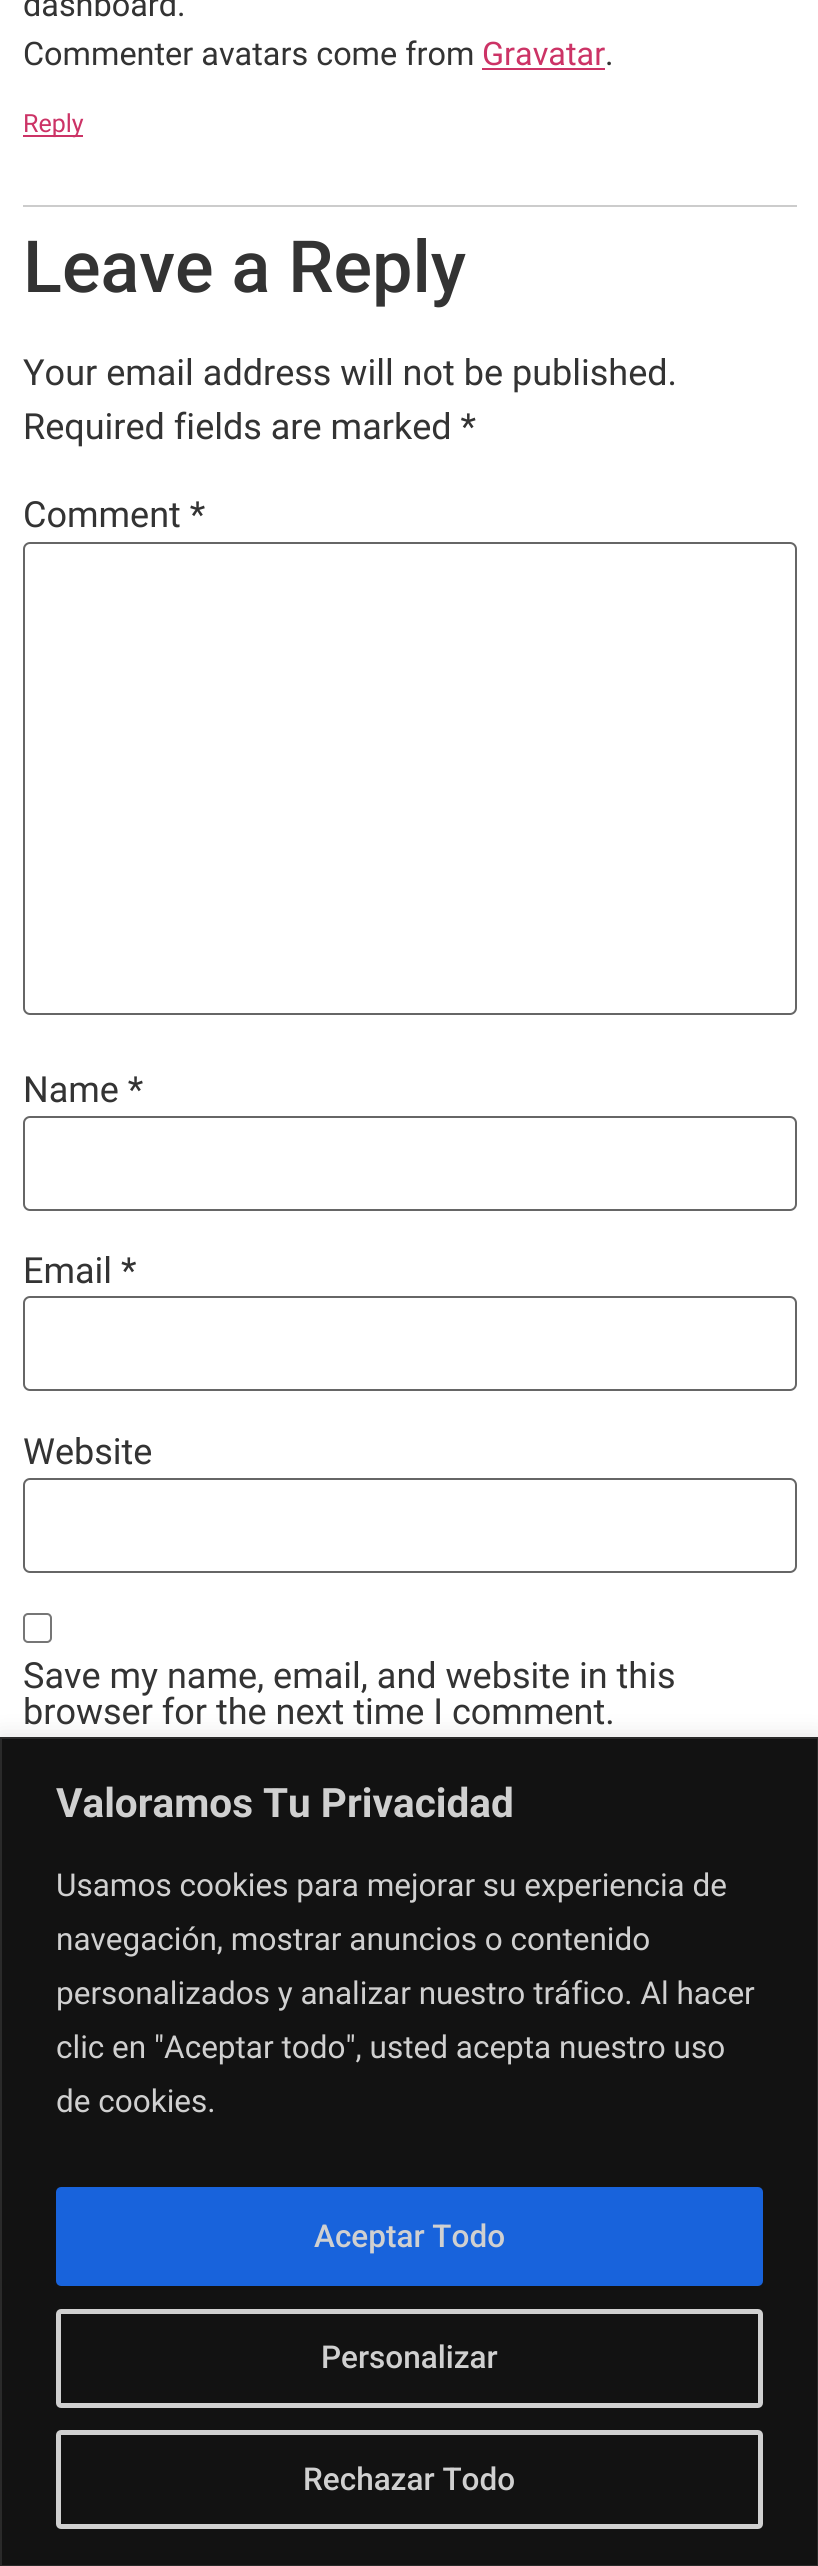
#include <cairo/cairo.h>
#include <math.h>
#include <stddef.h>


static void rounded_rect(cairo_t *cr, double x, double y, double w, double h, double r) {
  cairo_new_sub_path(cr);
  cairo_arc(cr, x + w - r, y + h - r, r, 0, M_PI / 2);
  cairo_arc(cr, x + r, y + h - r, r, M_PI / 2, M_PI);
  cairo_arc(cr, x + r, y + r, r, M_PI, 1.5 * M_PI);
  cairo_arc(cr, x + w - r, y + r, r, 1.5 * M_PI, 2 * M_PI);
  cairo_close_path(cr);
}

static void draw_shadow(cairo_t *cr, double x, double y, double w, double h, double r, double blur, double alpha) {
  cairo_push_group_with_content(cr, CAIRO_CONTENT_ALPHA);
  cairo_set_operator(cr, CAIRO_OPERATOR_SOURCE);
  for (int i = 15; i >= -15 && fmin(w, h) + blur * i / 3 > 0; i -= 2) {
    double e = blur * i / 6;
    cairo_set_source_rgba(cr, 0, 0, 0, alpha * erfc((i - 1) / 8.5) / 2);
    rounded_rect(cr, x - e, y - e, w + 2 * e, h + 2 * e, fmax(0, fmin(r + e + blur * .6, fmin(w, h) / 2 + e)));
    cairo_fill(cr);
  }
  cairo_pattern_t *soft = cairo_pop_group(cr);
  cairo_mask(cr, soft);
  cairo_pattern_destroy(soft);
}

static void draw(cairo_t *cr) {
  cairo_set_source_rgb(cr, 1, 1, 1);
  cairo_paint(cr);
  cairo_set_source_rgb(cr, 204 / 255.0, 204 / 255.0, 204 / 255.0);
  cairo_rectangle(cr, 23, 205, 774, 2);
  cairo_fill(cr);
  cairo_set_source_rgb(cr, 204 / 255.0, 51 / 255.0, 102 / 255.0);
  cairo_rectangle(cr, 482, 68, 123, 2);
  cairo_fill(cr);
  cairo_rectangle(cr, 23, 135, 60, 2);
  cairo_fill(cr);
  rounded_rect(cr, 24, 543, 772, 471, 6);
  cairo_set_source_rgb(cr, 102 / 255.0, 102 / 255.0, 102 / 255.0);
  cairo_stroke(cr);
  rounded_rect(cr, 24, 1117, 772, 93, 6);
  cairo_stroke(cr);
  rounded_rect(cr, 24, 1297, 772, 93, 6);
  cairo_stroke(cr);
  rounded_rect(cr, 24, 1479, 772, 93, 6);
  cairo_stroke(cr);
  rounded_rect(cr, 24, 1614, 27, 28, 4);
  cairo_set_source_rgb(cr, 118 / 255.0, 118 / 255.0, 118 / 255.0);
  cairo_stroke(cr);
  cairo_set_source_rgb(cr, 172 / 255.0, 171 / 255.0, 171 / 255.0);
  draw_shadow(cr, 0, 1735, 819, 830, 0, 11, 0.3);
  cairo_set_source_rgb(cr, 18 / 255.0, 18 / 255.0, 18 / 255.0);
  cairo_rectangle(cr, 1, 1738, 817, 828);
  cairo_fill_preserve(cr);
  cairo_set_source_rgb(cr, 42 / 255.0, 42 / 255.0, 42 / 255.0);
  cairo_stroke(cr);
  cairo_set_source_rgb(cr, 24 / 255.0, 99 / 255.0, 220 / 255.0);
  rounded_rect(cr, 58.5, 2189.5, 702, 94, 2.5);
  cairo_fill_preserve(cr);
  cairo_set_line_width(cr, 5);
  cairo_stroke(cr);
  rounded_rect(cr, 58.5, 2311.5, 702, 94, 2.5);
  cairo_set_source_rgb(cr, 208 / 255.0, 208 / 255.0, 208 / 255.0);
  cairo_stroke(cr);
  rounded_rect(cr, 58.5, 2432.5, 702, 94, 2.5);
  cairo_stroke(cr);
  cairo_select_font_face(cr, "Roboto", CAIRO_FONT_SLANT_NORMAL, CAIRO_FONT_WEIGHT_NORMAL);
  cairo_set_font_size(cr, 32.4);
  cairo_set_source_rgb(cr, 51 / 255.0, 51 / 255.0, 51 / 255.0);
  cairo_move_to(cr, 23, 16);
  cairo_show_text(cr, "dashboard.");
  cairo_move_to(cr, 23, 65);
  cairo_show_text(cr, "Commenter avatars come from");
  cairo_set_source_rgb(cr, 204 / 255.0, 51 / 255.0, 102 / 255.0);
  cairo_move_to(cr, 482, 65);
  cairo_show_text(cr, "Gravatar");
  cairo_set_source_rgb(cr, 51 / 255.0, 51 / 255.0, 51 / 255.0);
  cairo_move_to(cr, 605, 65);
  cairo_show_text(cr, ".");
  cairo_set_font_size(cr, 25);
  cairo_set_source_rgb(cr, 204 / 255.0, 51 / 255.0, 102 / 255.0);
  cairo_move_to(cr, 23, 132);
  cairo_show_text(cr, "Reply");
  cairo_select_font_face(cr, "Roboto Medium", CAIRO_FONT_SLANT_NORMAL, CAIRO_FONT_WEIGHT_NORMAL);
  cairo_set_font_size(cr, 72);
  cairo_set_source_rgb(cr, 51 / 255.0, 51 / 255.0, 51 / 255.0);
  cairo_move_to(cr, 23, 292);
  cairo_show_text(cr, "Leave a Reply");
  cairo_select_font_face(cr, "Roboto", CAIRO_FONT_SLANT_NORMAL, CAIRO_FONT_WEIGHT_NORMAL);
  cairo_set_font_size(cr, 36);
  cairo_move_to(cr, 23, 385);
  cairo_show_text(cr, "Your email address will not be published.");
  cairo_move_to(cr, 23, 439);
  cairo_show_text(cr, "Required fields are marked *");
  cairo_move_to(cr, 23, 527);
  cairo_show_text(cr, "Comment *");
  cairo_move_to(cr, 23, 1102);
  cairo_show_text(cr, "Name *");
  cairo_move_to(cr, 23, 1283);
  cairo_show_text(cr, "Email *");
  cairo_move_to(cr, 23, 1464);
  cairo_show_text(cr, "Website");
  cairo_move_to(cr, 23, 1688);
  cairo_show_text(cr, "Save my name, email, and website in this");
  cairo_move_to(cr, 23, 1724);
  cairo_show_text(cr, "browser for the next time I comment.");
  cairo_select_font_face(cr, "Roboto", CAIRO_FONT_SLANT_NORMAL, CAIRO_FONT_WEIGHT_BOLD);
  cairo_set_font_size(cr, 40.5);
  cairo_set_source_rgb(cr, 208 / 255.0, 208 / 255.0, 208 / 255.0);
  cairo_move_to(cr, 56, 1817);
  cairo_show_text(cr, "Valoramos Tu Privacidad");
  cairo_select_font_face(cr, "Roboto", CAIRO_FONT_SLANT_NORMAL, CAIRO_FONT_WEIGHT_NORMAL);
  cairo_set_font_size(cr, 31.5);
  cairo_move_to(cr, 56, 1896);
  cairo_show_text(cr, "Usamos cookies para mejorar su experiencia de");
  cairo_move_to(cr, 56, 1950);
  cairo_show_text(cr, "navegación, mostrar anuncios o contenido");
  cairo_move_to(cr, 56, 2004);
  cairo_show_text(cr, "personalizados y analizar nuestro tráfico. Al hacer");
  cairo_move_to(cr, 56, 2058);
  cairo_show_text(cr, "clic en \"Aceptar todo\", usted acepta nuestro uso");
  cairo_move_to(cr, 56, 2112);
  cairo_show_text(cr, "de cookies.");
  cairo_select_font_face(cr, "Roboto Medium", CAIRO_FONT_SLANT_NORMAL, CAIRO_FONT_WEIGHT_NORMAL);
  cairo_move_to(cr, 314, 2247);
  cairo_show_text(cr, "Aceptar Todo");
  cairo_move_to(cr, 321, 2368);
  cairo_show_text(cr, "Personalizar");
  cairo_move_to(cr, 303, 2490);
  cairo_show_text(cr, "Rechazar Todo");
}

int main(void) {
  cairo_surface_t *surface = cairo_image_surface_create(CAIRO_FORMAT_RGB24, 818, 2566);
  cairo_t *cr = cairo_create(surface);
  cairo_font_options_t *options = cairo_font_options_create();
  cairo_font_options_set_hint_metrics(options, CAIRO_HINT_METRICS_OFF);
  cairo_font_options_set_hint_style(options, CAIRO_HINT_STYLE_NONE);
  cairo_set_font_options(cr, options);
  cairo_set_miter_limit(cr, 4);
  draw(cr);
  cairo_surface_write_to_png(surface, "out.png");
  cairo_font_options_destroy(options);
  cairo_destroy(cr);
  cairo_surface_destroy(surface);
  return 0;
}
